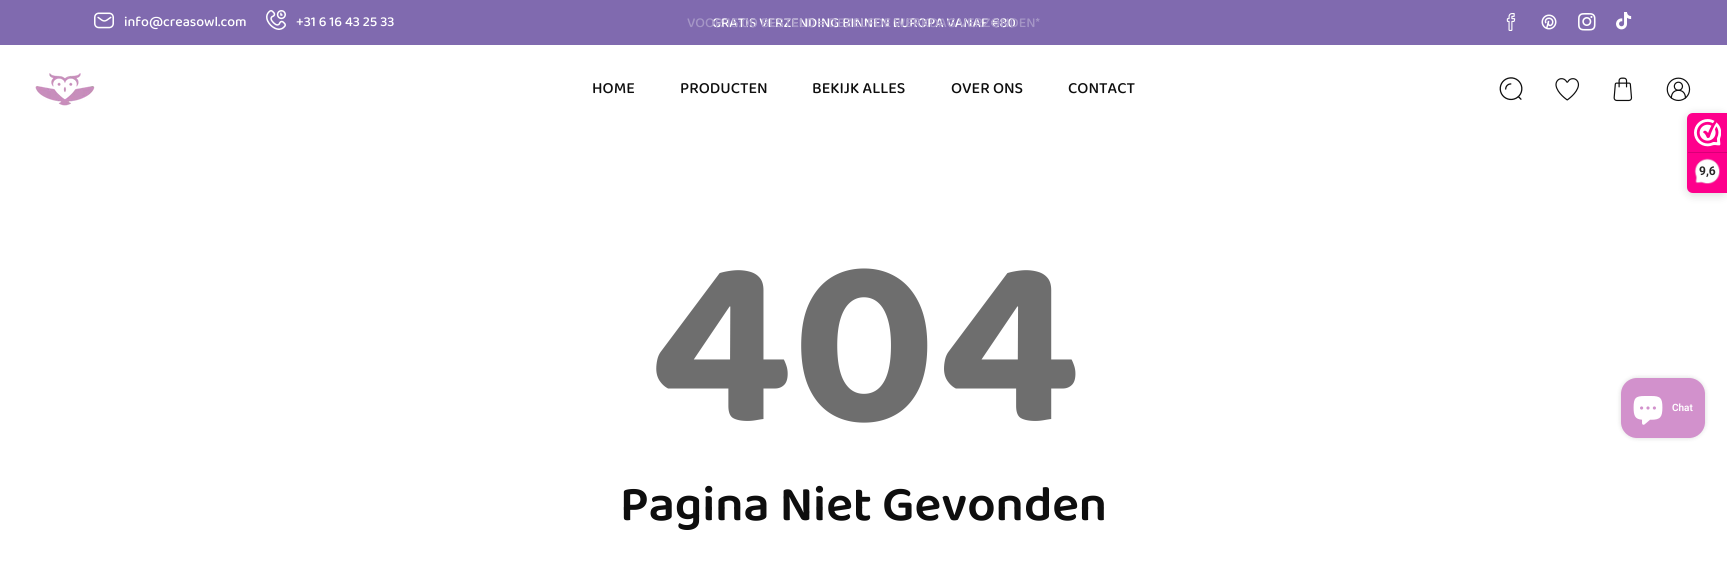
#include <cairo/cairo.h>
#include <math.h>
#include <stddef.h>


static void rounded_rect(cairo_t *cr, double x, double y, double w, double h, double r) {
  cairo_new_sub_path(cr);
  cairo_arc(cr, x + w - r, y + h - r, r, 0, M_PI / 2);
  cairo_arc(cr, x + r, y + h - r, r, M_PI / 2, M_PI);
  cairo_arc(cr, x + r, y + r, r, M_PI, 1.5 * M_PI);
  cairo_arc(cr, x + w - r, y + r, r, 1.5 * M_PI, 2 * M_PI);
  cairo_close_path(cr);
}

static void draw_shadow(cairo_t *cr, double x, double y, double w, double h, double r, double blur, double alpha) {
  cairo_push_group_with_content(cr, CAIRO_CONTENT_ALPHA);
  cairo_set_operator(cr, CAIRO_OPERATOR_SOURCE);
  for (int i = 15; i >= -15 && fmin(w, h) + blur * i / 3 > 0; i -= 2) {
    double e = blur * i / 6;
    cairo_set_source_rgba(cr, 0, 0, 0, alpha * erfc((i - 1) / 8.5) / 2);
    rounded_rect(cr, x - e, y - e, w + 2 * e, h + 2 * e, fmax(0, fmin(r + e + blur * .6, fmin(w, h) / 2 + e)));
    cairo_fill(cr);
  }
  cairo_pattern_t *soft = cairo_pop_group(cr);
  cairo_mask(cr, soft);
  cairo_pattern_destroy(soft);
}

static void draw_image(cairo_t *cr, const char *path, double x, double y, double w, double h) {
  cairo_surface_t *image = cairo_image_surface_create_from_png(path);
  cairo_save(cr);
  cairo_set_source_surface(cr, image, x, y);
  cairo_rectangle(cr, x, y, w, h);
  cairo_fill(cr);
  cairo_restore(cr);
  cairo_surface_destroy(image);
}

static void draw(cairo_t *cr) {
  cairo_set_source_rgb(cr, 1, 1, 1);
  cairo_paint(cr);
  cairo_set_source_rgb(cr, 128 / 255.0, 106 / 255.0, 175 / 255.0);
  cairo_rectangle(cr, 0, 0, 1727, 45);
  cairo_fill(cr);
  draw_image(cr, "images/1.png", 94, 12, 20, 17);
  draw_image(cr, "images/2.png", 266, 10, 20, 20);
  draw_image(cr, "images/3.png", 1506, 13, 10, 18);
  draw_image(cr, "images/4.png", 1541, 14, 16, 16);
  draw_image(cr, "images/5.png", 1578, 13, 18, 18);
  draw_image(cr, "images/6.png", 1616, 12, 16, 18);
  draw_image(cr, "images/7.png", 35, 73, 60, 33);
  draw_image(cr, "images/8.png", 1499, 77, 24, 24);
  draw_image(cr, "images/9.png", 1555, 78, 25, 23);
  draw_image(cr, "images/10.png", 1613, 77, 20, 25);
  draw_image(cr, "images/11.png", 1666, 77, 25, 25);
  cairo_set_source_rgb(cr, 0, 0, 0);
  draw_shadow(cr, 1687, 115, 40, 80, 6, 5, 0.15);
  cairo_set_source_rgb(cr, 254 / 255.0, 0, 140 / 255.0);
  cairo_new_path(cr);
  cairo_move_to(cr, 1693, 113);
  cairo_line_to(cr, 1727, 113);
  cairo_line_to(cr, 1727, 193);
  cairo_line_to(cr, 1693, 193);
  cairo_curve_to(cr, 1689.5, 193, 1687, 190.5, 1687, 187);
  cairo_line_to(cr, 1687, 119);
  cairo_curve_to(cr, 1687, 115.5, 1689.5, 113, 1693, 113);
  cairo_close_path(cr);
  cairo_fill(cr);
  draw_image(cr, "images/12.png", 1694, 119, 27, 28);
  cairo_set_source_rgb(cr, 216 / 255.0, 0, 119 / 255.0);
  cairo_rectangle(cr, 1688, 152, 39, 1);
  cairo_fill(cr);
  draw_image(cr, "images/13.png", 1694, 158, 26, 26);
  cairo_set_source_rgb(cr, 0, 0, 0);
  draw_shadow(cr, 1621, 378, 84, 60, 16, 2.5, 0.15);
  cairo_set_source_rgb(cr, 210 / 255.0, 145 / 255.0, 204 / 255.0);
  rounded_rect(cr, 1621, 378, 84, 60, 16);
  cairo_fill(cr);
  draw_image(cr, "images/14.png", 1633, 396, 30, 29);
  cairo_select_font_face(cr, "Baloo 2 Medium", CAIRO_FONT_SLANT_NORMAL, CAIRO_FONT_WEIGHT_NORMAL);
  cairo_set_font_size(cr, 14);
  cairo_set_source_rgb(cr, 1, 1, 1);
  cairo_move_to(cr, 124, 26);
  cairo_show_text(cr, "info@creasowl.com");
  cairo_move_to(cr, 296, 26);
  cairo_show_text(cr, "+31 6 16 43 25 33");
  cairo_move_to(cr, 712, 27);
  cairo_show_text(cr, "GRATIS VERZENDING BINNEN EUROPA VANAF €80");
  cairo_set_source_rgb(cr, 165 / 255.0, 150 / 255.0, 198 / 255.0);
  cairo_move_to(cr, 687, 27);
  cairo_show_text(cr, "VOOR 15:00 BESTELD = DEZELFDE WERKDAG VERZONDEN*");
  cairo_set_font_size(cr, 16);
  cairo_set_source_rgb(cr, 14 / 255.0, 14 / 255.0, 14 / 255.0);
  cairo_move_to(cr, 592, 93);
  cairo_show_text(cr, "HOME");
  cairo_move_to(cr, 680, 93);
  cairo_show_text(cr, "PRODUCTEN");
  cairo_move_to(cr, 812, 93);
  cairo_show_text(cr, "BEKIJK ALLES");
  cairo_move_to(cr, 951, 93);
  cairo_show_text(cr, "OVER ONS");
  cairo_move_to(cr, 1068, 93);
  cairo_show_text(cr, "CONTACT");
  cairo_select_font_face(cr, "Roboto", CAIRO_FONT_SLANT_NORMAL, CAIRO_FONT_WEIGHT_BOLD);
  cairo_set_font_size(cr, 12);
  cairo_set_source_rgb(cr, 39 / 255.0, 38 / 255.0, 38 / 255.0);
  cairo_move_to(cr, 1699, 175);
  cairo_show_text(cr, "9,6");
  cairo_select_font_face(cr, "Baloo 2", CAIRO_FONT_SLANT_NORMAL, CAIRO_FONT_WEIGHT_BOLD);
  cairo_set_font_size(cr, 242);
  cairo_set_source_rgb(cr, 110 / 255.0, 110 / 255.0, 110 / 255.0);
  cairo_move_to(cr, 649, 419);
  cairo_show_text(cr, "404");
  cairo_select_font_face(cr, "Baloo 2 SemiBold", CAIRO_FONT_SLANT_NORMAL, CAIRO_FONT_WEIGHT_NORMAL);
  cairo_set_font_size(cr, 50);
  cairo_set_source_rgb(cr, 14 / 255.0, 14 / 255.0, 14 / 255.0);
  cairo_move_to(cr, 620, 520);
  cairo_show_text(cr, "Pagina Niet Gevonden");
  cairo_select_font_face(cr, "Roboto SemiBold", CAIRO_FONT_SLANT_NORMAL, CAIRO_FONT_WEIGHT_NORMAL);
  cairo_set_font_size(cr, 10);
  cairo_set_source_rgb(cr, 1, 1, 1);
  cairo_move_to(cr, 1672, 411);
  cairo_show_text(cr, "Chat");
}

int main(void) {
  cairo_surface_t *surface = cairo_image_surface_create(CAIRO_FORMAT_RGB24, 1727, 563);
  cairo_t *cr = cairo_create(surface);
  cairo_font_options_t *options = cairo_font_options_create();
  cairo_font_options_set_hint_metrics(options, CAIRO_HINT_METRICS_OFF);
  cairo_font_options_set_hint_style(options, CAIRO_HINT_STYLE_NONE);
  cairo_set_font_options(cr, options);
  cairo_set_miter_limit(cr, 4);
  draw(cr);
  cairo_surface_write_to_png(surface, "out.png");
  cairo_font_options_destroy(options);
  cairo_destroy(cr);
  cairo_surface_destroy(surface);
  return 0;
}
